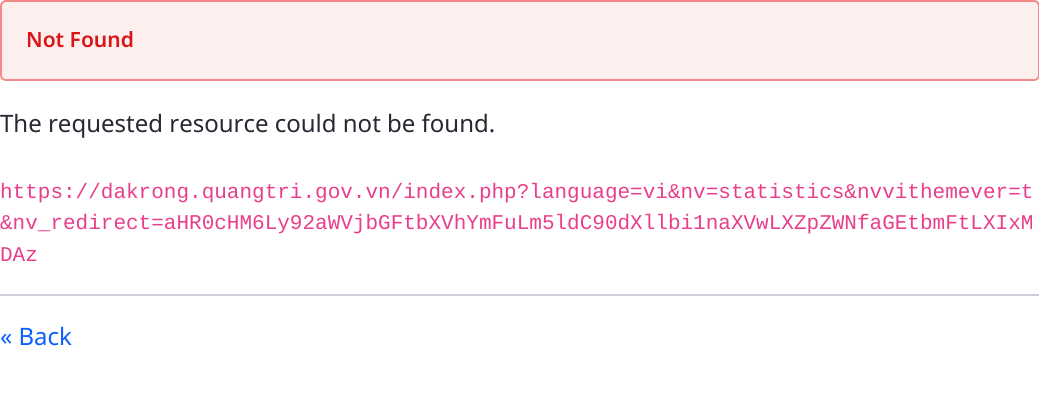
#include <cairo/cairo.h>
#include <math.h>
#include <stddef.h>


static void rounded_rect(cairo_t *cr, double x, double y, double w, double h, double r) {
  cairo_new_sub_path(cr);
  cairo_arc(cr, x + w - r, y + h - r, r, 0, M_PI / 2);
  cairo_arc(cr, x + r, y + h - r, r, M_PI / 2, M_PI);
  cairo_arc(cr, x + r, y + r, r, M_PI, 1.5 * M_PI);
  cairo_arc(cr, x + w - r, y + r, r, 1.5 * M_PI, 2 * M_PI);
  cairo_close_path(cr);
}

static void draw(cairo_t *cr) {
  cairo_set_source_rgb(cr, 1, 1, 1);
  cairo_paint(cr);
  cairo_set_source_rgb(cr, 254 / 255.0, 239 / 255.0, 239 / 255.0);
  rounded_rect(cr, 1, 1, 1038, 79, 5);
  cairo_fill_preserve(cr);
  cairo_set_source_rgb(cr, 244 / 255.0, 137 / 255.0, 137 / 255.0);
  cairo_stroke(cr);
  cairo_set_source_rgb(cr, 205 / 255.0, 206 / 255.0, 217 / 255.0);
  cairo_rectangle(cr, 0, 294, 1039, 2);
  cairo_fill(cr);
  cairo_select_font_face(cr, "Noto Sans SemiBold", CAIRO_FONT_SLANT_NORMAL, CAIRO_FONT_WEIGHT_NORMAL);
  cairo_set_font_size(cr, 21);
  cairo_set_source_rgb(cr, 218 / 255.0, 20 / 255.0, 20 / 255.0);
  cairo_move_to(cr, 26, 47);
  cairo_show_text(cr, "Not Found");
  cairo_select_font_face(cr, "Noto Sans", CAIRO_FONT_SLANT_NORMAL, CAIRO_FONT_WEIGHT_NORMAL);
  cairo_set_font_size(cr, 24);
  cairo_set_source_rgb(cr, 39 / 255.0, 40 / 255.0, 51 / 255.0);
  cairo_move_to(cr, 0, 132);
  cairo_show_text(cr, "The requested resource could not be found.");
  cairo_select_font_face(cr, "Liberation Mono", CAIRO_FONT_SLANT_NORMAL, CAIRO_FONT_WEIGHT_NORMAL);
  cairo_set_font_size(cr, 21);
  cairo_set_source_rgb(cr, 232 / 255.0, 62 / 255.0, 140 / 255.0);
  cairo_move_to(cr, 0, 198);
  cairo_show_text(cr, "https://dakrong.quangtri.gov.vn/index.php?language=vi&nv=statistics&nvvithemever=t");
  cairo_move_to(cr, 0, 229);
  cairo_show_text(cr, "&nv_redirect=aHR0cHM6Ly92aWVjbGFtbXVhYmFuLm5ldC90dXllbi1naXVwLXZpZWNfaGEtbmFtLXIxM");
  cairo_move_to(cr, 0, 261);
  cairo_show_text(cr, "DAz");
  cairo_select_font_face(cr, "Noto Sans", CAIRO_FONT_SLANT_NORMAL, CAIRO_FONT_WEIGHT_NORMAL);
  cairo_set_font_size(cr, 24);
  cairo_set_source_rgb(cr, 11 / 255.0, 95 / 255.0, 1);
  cairo_move_to(cr, 0, 345);
  cairo_show_text(cr, "« Back");
}

int main(void) {
  cairo_surface_t *surface = cairo_image_surface_create(CAIRO_FORMAT_RGB24, 1039, 395);
  cairo_t *cr = cairo_create(surface);
  cairo_font_options_t *options = cairo_font_options_create();
  cairo_font_options_set_hint_metrics(options, CAIRO_HINT_METRICS_OFF);
  cairo_font_options_set_hint_style(options, CAIRO_HINT_STYLE_NONE);
  cairo_set_font_options(cr, options);
  cairo_set_miter_limit(cr, 4);
  draw(cr);
  cairo_surface_write_to_png(surface, "out.png");
  cairo_font_options_destroy(options);
  cairo_destroy(cr);
  cairo_surface_destroy(surface);
  return 0;
}
